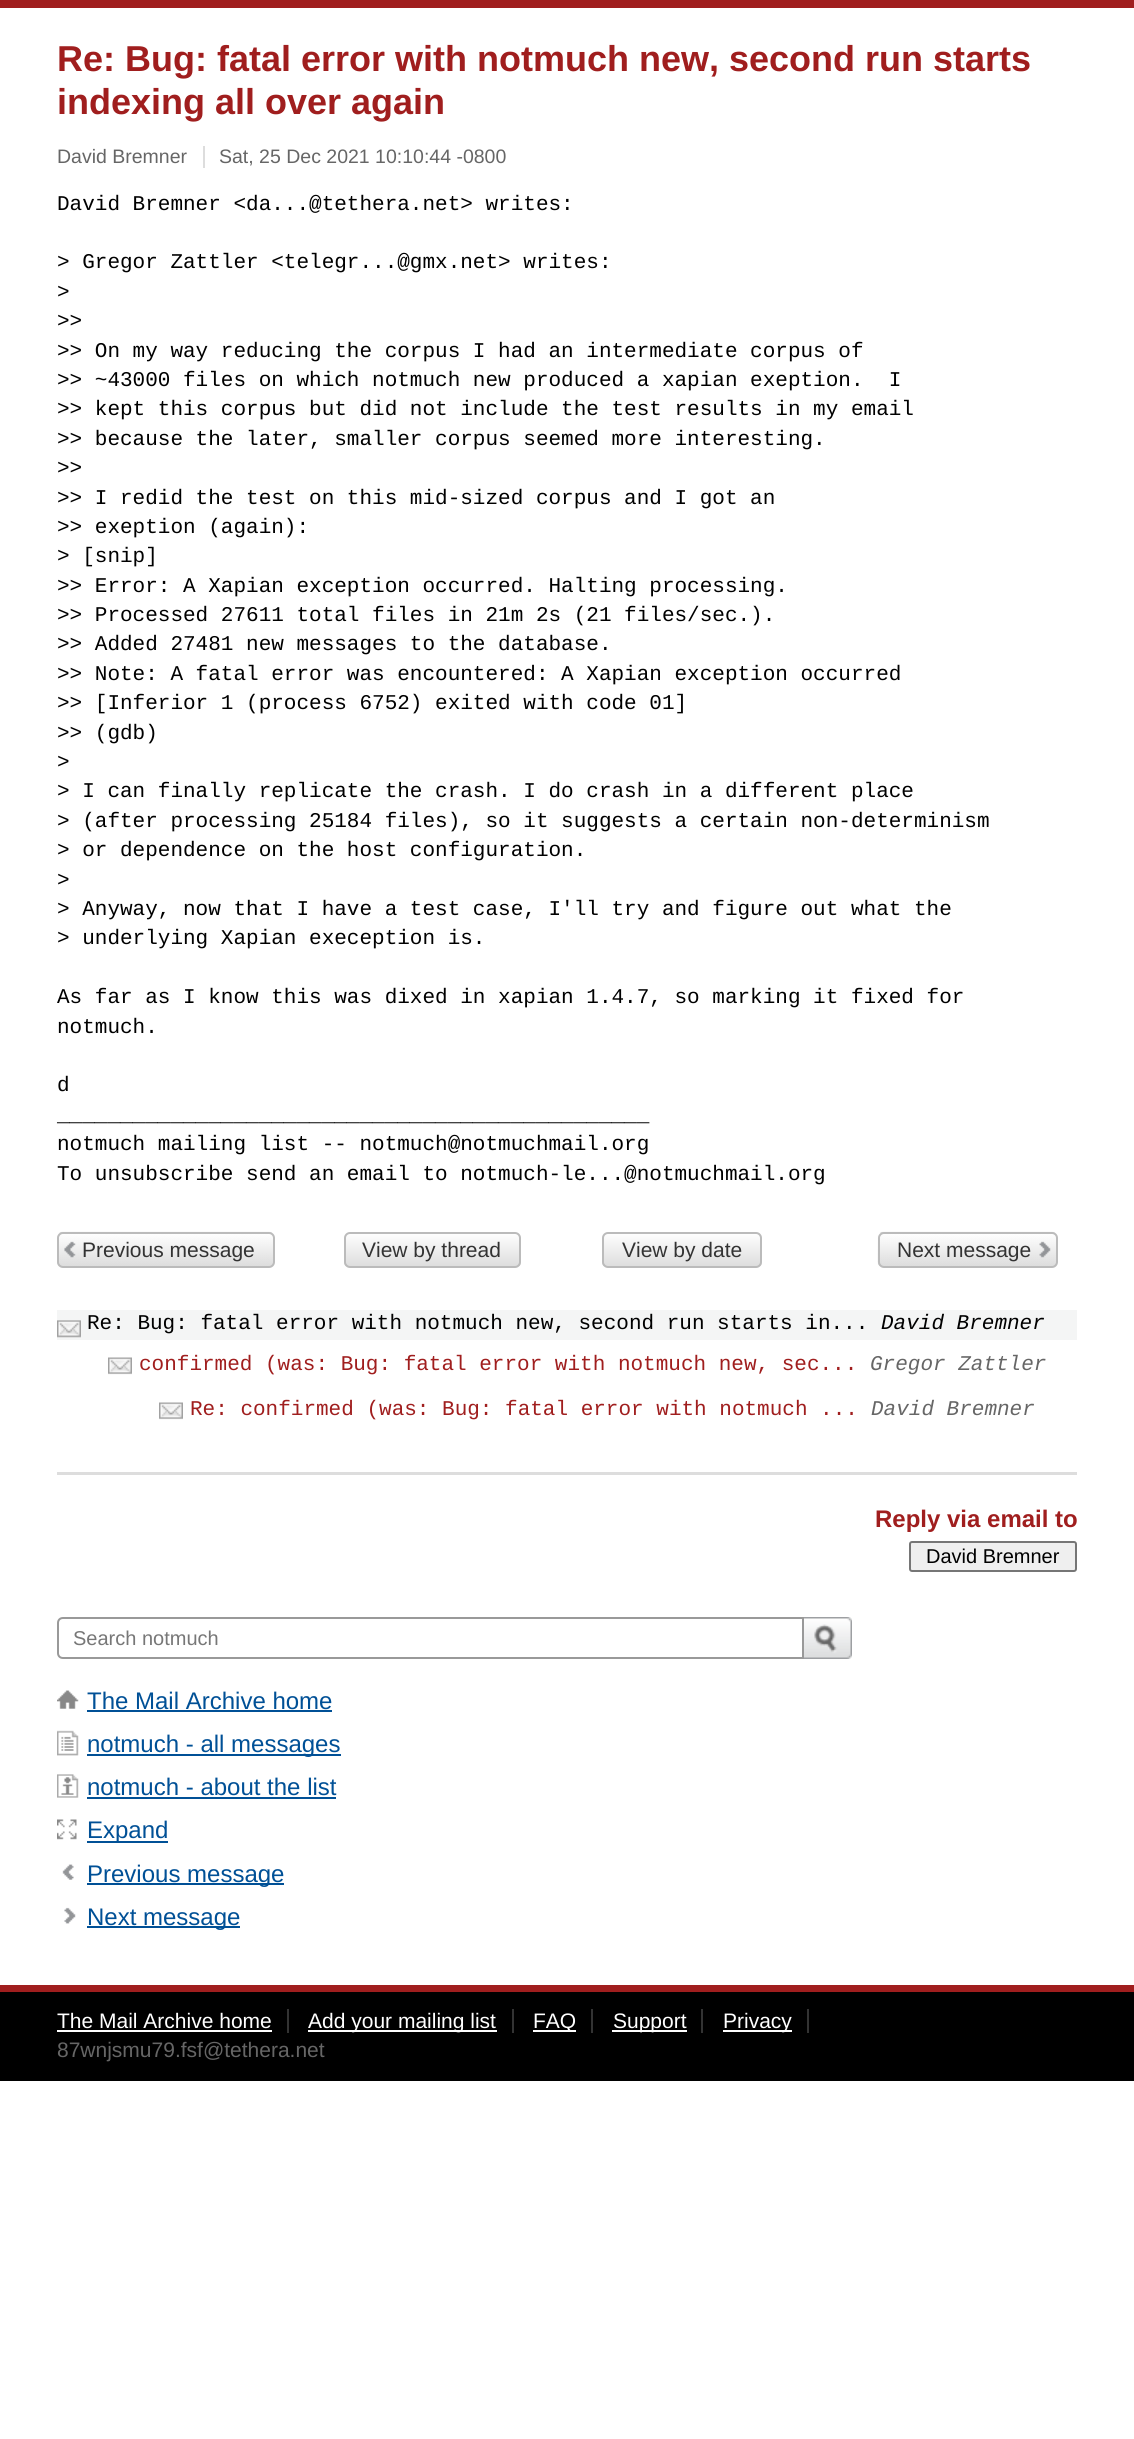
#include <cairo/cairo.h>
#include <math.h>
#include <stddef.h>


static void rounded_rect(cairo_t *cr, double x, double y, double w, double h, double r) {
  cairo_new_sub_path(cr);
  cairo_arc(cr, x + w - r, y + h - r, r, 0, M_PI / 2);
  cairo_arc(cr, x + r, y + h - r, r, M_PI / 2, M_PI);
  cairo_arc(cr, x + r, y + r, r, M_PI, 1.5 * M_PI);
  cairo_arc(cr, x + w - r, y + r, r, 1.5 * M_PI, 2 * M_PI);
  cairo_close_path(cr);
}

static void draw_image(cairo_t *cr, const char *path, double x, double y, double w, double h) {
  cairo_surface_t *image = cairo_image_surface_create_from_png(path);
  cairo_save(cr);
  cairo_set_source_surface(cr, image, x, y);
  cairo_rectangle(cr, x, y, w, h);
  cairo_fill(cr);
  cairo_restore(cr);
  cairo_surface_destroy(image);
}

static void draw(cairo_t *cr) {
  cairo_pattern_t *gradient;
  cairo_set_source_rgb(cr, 1, 1, 1);
  cairo_paint(cr);
  cairo_set_source_rgb(cr, 160 / 255.0, 30 / 255.0, 30 / 255.0);
  cairo_rectangle(cr, 0, 0, 1134, 8);
  cairo_fill(cr);
  cairo_set_source_rgb(cr, 221 / 255.0, 221 / 255.0, 221 / 255.0);
  cairo_rectangle(cr, 203, 146, 2, 22);
  cairo_fill(cr);
  draw_image(cr, "images/1.png", 57, 1231, 217, 36);
  rounded_rect(cr, 58, 1233, 216, 34, 5);
  cairo_set_source_rgb(cr, 187 / 255.0, 187 / 255.0, 187 / 255.0);
  cairo_stroke(cr);
  cairo_save(cr);
  rounded_rect(cr, 344, 1232, 177, 36, 6);
  cairo_clip(cr);
  gradient = cairo_pattern_create_linear(432, 1233, 432, 1266);
  cairo_pattern_add_color_stop_rgba(gradient, 0, 1, 1, 1, 1);
  cairo_pattern_add_color_stop_rgba(gradient, 1, 221 / 255.0, 221 / 255.0, 221 / 255.0, 1);
  cairo_set_source(cr, gradient);
  cairo_pattern_destroy(gradient);
  cairo_rectangle(cr, 344, 1233, 177, 33);
  cairo_fill(cr);
  cairo_restore(cr);
  rounded_rect(cr, 345, 1233, 175, 34, 5);
  cairo_stroke(cr);
  cairo_save(cr);
  rounded_rect(cr, 602, 1232, 160, 36, 6);
  cairo_clip(cr);
  gradient = cairo_pattern_create_linear(682, 1233, 682, 1266);
  cairo_pattern_add_color_stop_rgba(gradient, 0, 1, 1, 1, 1);
  cairo_pattern_add_color_stop_rgba(gradient, 1, 221 / 255.0, 221 / 255.0, 221 / 255.0, 1);
  cairo_set_source(cr, gradient);
  cairo_pattern_destroy(gradient);
  cairo_rectangle(cr, 602, 1233, 160, 33);
  cairo_fill(cr);
  cairo_restore(cr);
  rounded_rect(cr, 603, 1233, 158, 34, 5);
  cairo_stroke(cr);
  draw_image(cr, "images/2.png", 877, 1231, 180, 36);
  rounded_rect(cr, 879, 1233, 178, 34, 5);
  cairo_stroke(cr);
  cairo_set_source_rgb(cr, 244 / 255.0, 245 / 255.0, 245 / 255.0);
  cairo_rectangle(cr, 57, 1310, 1020, 30);
  cairo_fill(cr);
  draw_image(cr, "images/3.png", 57, 1320, 24, 18);
  draw_image(cr, "images/4.png", 108, 1357, 24, 18);
  draw_image(cr, "images/4.png", 159, 1402, 24, 18);
  cairo_set_source_rgb(cr, 221 / 255.0, 221 / 255.0, 221 / 255.0);
  cairo_rectangle(cr, 57, 1472, 1020, 3);
  cairo_fill(cr);
  cairo_set_source_rgb(cr, 239 / 255.0, 239 / 255.0, 239 / 255.0);
  rounded_rect(cr, 910, 1542, 166, 29, 2);
  cairo_fill_preserve(cr);
  cairo_set_source_rgb(cr, 118 / 255.0, 118 / 255.0, 118 / 255.0);
  cairo_stroke(cr);
  cairo_new_path(cr);
  cairo_move_to(cr, 63, 1618);
  cairo_line_to(cr, 803, 1618);
  cairo_line_to(cr, 803, 1658);
  cairo_line_to(cr, 63, 1658);
  cairo_curve_to(cr, 60, 1658, 58, 1656, 58, 1653);
  cairo_line_to(cr, 58, 1623);
  cairo_curve_to(cr, 58, 1620, 60, 1618, 63, 1618);
  cairo_close_path(cr);
  cairo_set_source_rgb(cr, 153 / 255.0, 153 / 255.0, 153 / 255.0);
  cairo_stroke(cr);
  draw_image(cr, "images/5.png", 804, 1617, 48, 42);
  draw_image(cr, "images/6.png", 57, 1690, 22, 19);
  cairo_set_source_rgb(cr, 0, 80 / 255.0, 150 / 255.0);
  cairo_rectangle(cr, 87, 1710, 245, 2);
  cairo_fill(cr);
  draw_image(cr, "images/7.png", 57, 1730, 22, 26);
  cairo_rectangle(cr, 87, 1754, 254, 2);
  cairo_fill(cr);
  draw_image(cr, "images/8.png", 57, 1774, 22, 24);
  cairo_rectangle(cr, 87, 1797, 249, 2);
  cairo_fill(cr);
  draw_image(cr, "images/9.png", 57, 1819, 20, 21);
  cairo_rectangle(cr, 87, 1841, 81, 2);
  cairo_fill(cr);
  draw_image(cr, "images/10.png", 62, 1864, 12, 16);
  cairo_rectangle(cr, 87, 1883, 197, 2);
  cairo_fill(cr);
  draw_image(cr, "images/11.png", 64, 1907, 12, 17);
  cairo_rectangle(cr, 87, 1926, 153, 2);
  cairo_fill(cr);
  cairo_set_source_rgb(cr, 0, 0, 0);
  cairo_rectangle(cr, 0, 1992, 1134, 89);
  cairo_fill(cr);
  cairo_set_source_rgb(cr, 160 / 255.0, 30 / 255.0, 30 / 255.0);
  cairo_rectangle(cr, 0, 1985, 1134, 7);
  cairo_fill(cr);
  cairo_set_source_rgb(cr, 51 / 255.0, 51 / 255.0, 51 / 255.0);
  cairo_rectangle(cr, 287, 2009, 2, 24);
  cairo_fill(cr);
  cairo_set_source_rgb(cr, 1, 1, 1);
  cairo_rectangle(cr, 57, 2030, 215, 2);
  cairo_fill(cr);
  cairo_set_source_rgb(cr, 51 / 255.0, 51 / 255.0, 51 / 255.0);
  cairo_rectangle(cr, 512, 2009, 2, 24);
  cairo_fill(cr);
  cairo_set_source_rgb(cr, 1, 1, 1);
  cairo_rectangle(cr, 308, 2030, 189, 2);
  cairo_fill(cr);
  cairo_set_source_rgb(cr, 51 / 255.0, 51 / 255.0, 51 / 255.0);
  cairo_rectangle(cr, 591, 2009, 2, 24);
  cairo_fill(cr);
  cairo_set_source_rgb(cr, 1, 1, 1);
  cairo_rectangle(cr, 533, 2030, 43, 2);
  cairo_fill(cr);
  cairo_set_source_rgb(cr, 51 / 255.0, 51 / 255.0, 51 / 255.0);
  cairo_rectangle(cr, 701, 2009, 2, 24);
  cairo_fill(cr);
  cairo_set_source_rgb(cr, 1, 1, 1);
  cairo_rectangle(cr, 612, 2030, 75, 2);
  cairo_fill(cr);
  cairo_set_source_rgb(cr, 51 / 255.0, 51 / 255.0, 51 / 255.0);
  cairo_rectangle(cr, 807, 2009, 2, 24);
  cairo_fill(cr);
  cairo_set_source_rgb(cr, 1, 1, 1);
  cairo_rectangle(cr, 723, 2030, 69, 2);
  cairo_fill(cr);
  cairo_select_font_face(cr, "Liberation Sans", CAIRO_FONT_SLANT_NORMAL, CAIRO_FONT_WEIGHT_BOLD);
  cairo_set_font_size(cr, 36);
  cairo_set_source_rgb(cr, 160 / 255.0, 30 / 255.0, 30 / 255.0);
  cairo_move_to(cr, 57, 71);
  cairo_show_text(cr, "Re: Bug: fatal error with notmuch new, second run starts");
  cairo_move_to(cr, 57, 114);
  cairo_show_text(cr, "indexing all over again");
  cairo_select_font_face(cr, "Liberation Sans", CAIRO_FONT_SLANT_NORMAL, CAIRO_FONT_WEIGHT_NORMAL);
  cairo_set_font_size(cr, 19.5);
  cairo_set_source_rgb(cr, 102 / 255.0, 102 / 255.0, 102 / 255.0);
  cairo_move_to(cr, 57, 163);
  cairo_show_text(cr, "David Bremner");
  cairo_move_to(cr, 219, 163);
  cairo_show_text(cr, "Sat, 25 Dec 2021 10:10:44 -0800");
  cairo_select_font_face(cr, "Liberation Mono", CAIRO_FONT_SLANT_NORMAL, CAIRO_FONT_WEIGHT_NORMAL);
  cairo_set_font_size(cr, 21);
  cairo_set_source_rgb(cr, 0, 0, 0);
  cairo_move_to(cr, 57, 210);
  cairo_show_text(cr, "David Bremner <da...@tethera.net> writes:");
  cairo_move_to(cr, 57, 268);
  cairo_show_text(cr, "> Gregor Zattler <telegr...@gmx.net> writes:");
  cairo_move_to(cr, 57, 298);
  cairo_show_text(cr, ">");
  cairo_move_to(cr, 57, 327);
  cairo_show_text(cr, ">>");
  cairo_move_to(cr, 57, 357);
  cairo_show_text(cr, ">> On my way reducing the corpus I had an intermediate corpus of");
  cairo_move_to(cr, 57, 386);
  cairo_show_text(cr, ">> ~43000 files on which notmuch new produced a xapian exeption.  I");
  cairo_move_to(cr, 57, 415);
  cairo_show_text(cr, ">> kept this corpus but did not include the test results in my email");
  cairo_move_to(cr, 57, 445);
  cairo_show_text(cr, ">> because the later, smaller corpus seemed more interesting.");
  cairo_move_to(cr, 57, 474);
  cairo_show_text(cr, ">>");
  cairo_move_to(cr, 57, 504);
  cairo_show_text(cr, ">> I redid the test on this mid-sized corpus and I got an");
  cairo_move_to(cr, 57, 533);
  cairo_show_text(cr, ">> exeption (again):");
  cairo_move_to(cr, 57, 562);
  cairo_show_text(cr, "> [snip]");
  cairo_move_to(cr, 57, 592);
  cairo_show_text(cr, ">> Error: A Xapian exception occurred. Halting processing.");
  cairo_move_to(cr, 57, 621);
  cairo_show_text(cr, ">> Processed 27611 total files in 21m 2s (21 files/sec.).");
  cairo_move_to(cr, 57, 650);
  cairo_show_text(cr, ">> Added 27481 new messages to the database.");
  cairo_move_to(cr, 57, 680);
  cairo_show_text(cr, ">> Note: A fatal error was encountered: A Xapian exception occurred");
  cairo_move_to(cr, 57, 709);
  cairo_show_text(cr, ">> [Inferior 1 (process 6752) exited with code 01]");
  cairo_move_to(cr, 57, 739);
  cairo_show_text(cr, ">> (gdb)");
  cairo_move_to(cr, 57, 768);
  cairo_show_text(cr, ">");
  cairo_move_to(cr, 57, 797);
  cairo_show_text(cr, "> I can finally replicate the crash. I do crash in a different place");
  cairo_move_to(cr, 57, 827);
  cairo_show_text(cr, "> (after processing 25184 files), so it suggests a certain non-determinism");
  cairo_move_to(cr, 57, 856);
  cairo_show_text(cr, "> or dependence on the host configuration.");
  cairo_move_to(cr, 57, 886);
  cairo_show_text(cr, ">");
  cairo_move_to(cr, 57, 915);
  cairo_show_text(cr, "> Anyway, now that I have a test case, I'll try and figure out what the");
  cairo_move_to(cr, 57, 944);
  cairo_show_text(cr, "> underlying Xapian exeception is.");
  cairo_move_to(cr, 57, 1003);
  cairo_show_text(cr, "As far as I know this was dixed in xapian 1.4.7, so marking it fixed for");
  cairo_move_to(cr, 57, 1033);
  cairo_show_text(cr, "notmuch.");
  cairo_move_to(cr, 57, 1091);
  cairo_show_text(cr, "d");
  cairo_move_to(cr, 57, 1121);
  cairo_show_text(cr, "_______________________________________________");
  cairo_move_to(cr, 57, 1150);
  cairo_show_text(cr, "notmuch mailing list -- notmuch@notmuchmail.org");
  cairo_move_to(cr, 57, 1180);
  cairo_show_text(cr, "To unsubscribe send an email to notmuch-le...@notmuchmail.org");
  cairo_select_font_face(cr, "Liberation Sans", CAIRO_FONT_SLANT_NORMAL, CAIRO_FONT_WEIGHT_NORMAL);
  cairo_set_source_rgb(cr, 51 / 255.0, 51 / 255.0, 51 / 255.0);
  cairo_move_to(cr, 82, 1257);
  cairo_show_text(cr, "Previous message");
  cairo_move_to(cr, 362, 1257);
  cairo_show_text(cr, "View by thread");
  cairo_move_to(cr, 622, 1257);
  cairo_show_text(cr, "View by date");
  cairo_move_to(cr, 897, 1257);
  cairo_show_text(cr, "Next message");
  cairo_select_font_face(cr, "Liberation Mono", CAIRO_FONT_SLANT_NORMAL, CAIRO_FONT_WEIGHT_NORMAL);
  cairo_set_source_rgb(cr, 0, 0, 0);
  cairo_move_to(cr, 87, 1329);
  cairo_show_text(cr, "Re: Bug: fatal error with notmuch new, second run starts in...");
  cairo_select_font_face(cr, "Liberation Mono", CAIRO_FONT_SLANT_ITALIC, CAIRO_FONT_WEIGHT_NORMAL);
  cairo_move_to(cr, 881, 1329);
  cairo_show_text(cr, "David Bremner");
  cairo_select_font_face(cr, "Liberation Mono", CAIRO_FONT_SLANT_NORMAL, CAIRO_FONT_WEIGHT_NORMAL);
  cairo_set_source_rgb(cr, 160 / 255.0, 30 / 255.0, 30 / 255.0);
  cairo_move_to(cr, 139, 1370);
  cairo_show_text(cr, "confirmed (was: Bug: fatal error with notmuch new, sec...");
  cairo_select_font_face(cr, "Liberation Mono", CAIRO_FONT_SLANT_ITALIC, CAIRO_FONT_WEIGHT_NORMAL);
  cairo_set_source_rgb(cr, 102 / 255.0, 102 / 255.0, 102 / 255.0);
  cairo_move_to(cr, 870, 1370);
  cairo_show_text(cr, "Gregor Zattler");
  cairo_select_font_face(cr, "Liberation Mono", CAIRO_FONT_SLANT_NORMAL, CAIRO_FONT_WEIGHT_NORMAL);
  cairo_set_source_rgb(cr, 160 / 255.0, 30 / 255.0, 30 / 255.0);
  cairo_move_to(cr, 190, 1415);
  cairo_show_text(cr, "Re: confirmed (was: Bug: fatal error with notmuch ...");
  cairo_select_font_face(cr, "Liberation Mono", CAIRO_FONT_SLANT_ITALIC, CAIRO_FONT_WEIGHT_NORMAL);
  cairo_set_source_rgb(cr, 102 / 255.0, 102 / 255.0, 102 / 255.0);
  cairo_move_to(cr, 871, 1415);
  cairo_show_text(cr, "David Bremner");
  cairo_select_font_face(cr, "Liberation Sans", CAIRO_FONT_SLANT_NORMAL, CAIRO_FONT_WEIGHT_BOLD);
  cairo_set_font_size(cr, 24);
  cairo_set_source_rgb(cr, 160 / 255.0, 30 / 255.0, 30 / 255.0);
  cairo_move_to(cr, 875, 1527);
  cairo_show_text(cr, "Reply via email to");
  cairo_select_font_face(cr, "Liberation Sans", CAIRO_FONT_SLANT_NORMAL, CAIRO_FONT_WEIGHT_NORMAL);
  cairo_set_font_size(cr, 20);
  cairo_set_source_rgb(cr, 0, 0, 0);
  cairo_move_to(cr, 926, 1563);
  cairo_show_text(cr, "David Bremner");
  cairo_set_source_rgb(cr, 119 / 255.0, 119 / 255.0, 119 / 255.0);
  cairo_move_to(cr, 73, 1645);
  cairo_show_text(cr, "Search notmuch");
  cairo_set_font_size(cr, 24);
  cairo_set_source_rgb(cr, 0, 80 / 255.0, 150 / 255.0);
  cairo_move_to(cr, 87, 1709);
  cairo_show_text(cr, "The Mail Archive home");
  cairo_move_to(cr, 87, 1752);
  cairo_show_text(cr, "notmuch - all messages");
  cairo_move_to(cr, 87, 1795);
  cairo_show_text(cr, "notmuch - about the list");
  cairo_move_to(cr, 87, 1838);
  cairo_show_text(cr, "Expand");
  cairo_move_to(cr, 87, 1882);
  cairo_show_text(cr, "Previous message");
  cairo_move_to(cr, 87, 1925);
  cairo_show_text(cr, "Next message");
  cairo_set_font_size(cr, 21);
  cairo_set_source_rgb(cr, 1, 1, 1);
  cairo_move_to(cr, 57, 2028);
  cairo_show_text(cr, "The Mail Archive home");
  cairo_move_to(cr, 308, 2028);
  cairo_show_text(cr, "Add your mailing list");
  cairo_move_to(cr, 533, 2028);
  cairo_show_text(cr, "FAQ");
  cairo_move_to(cr, 613, 2028);
  cairo_show_text(cr, "Support");
  cairo_move_to(cr, 723, 2028);
  cairo_show_text(cr, "Privacy");
  cairo_set_source_rgb(cr, 102 / 255.0, 102 / 255.0, 102 / 255.0);
  cairo_move_to(cr, 57, 2057);
  cairo_show_text(cr, "87wnjsmu79.fsf@tethera.net");
}

int main(void) {
  cairo_surface_t *surface = cairo_image_surface_create(CAIRO_FORMAT_RGB24, 1134, 2439);
  cairo_t *cr = cairo_create(surface);
  cairo_font_options_t *options = cairo_font_options_create();
  cairo_font_options_set_hint_metrics(options, CAIRO_HINT_METRICS_OFF);
  cairo_font_options_set_hint_style(options, CAIRO_HINT_STYLE_NONE);
  cairo_set_font_options(cr, options);
  cairo_set_miter_limit(cr, 4);
  draw(cr);
  cairo_surface_write_to_png(surface, "out.png");
  cairo_font_options_destroy(options);
  cairo_destroy(cr);
  cairo_surface_destroy(surface);
  return 0;
}
